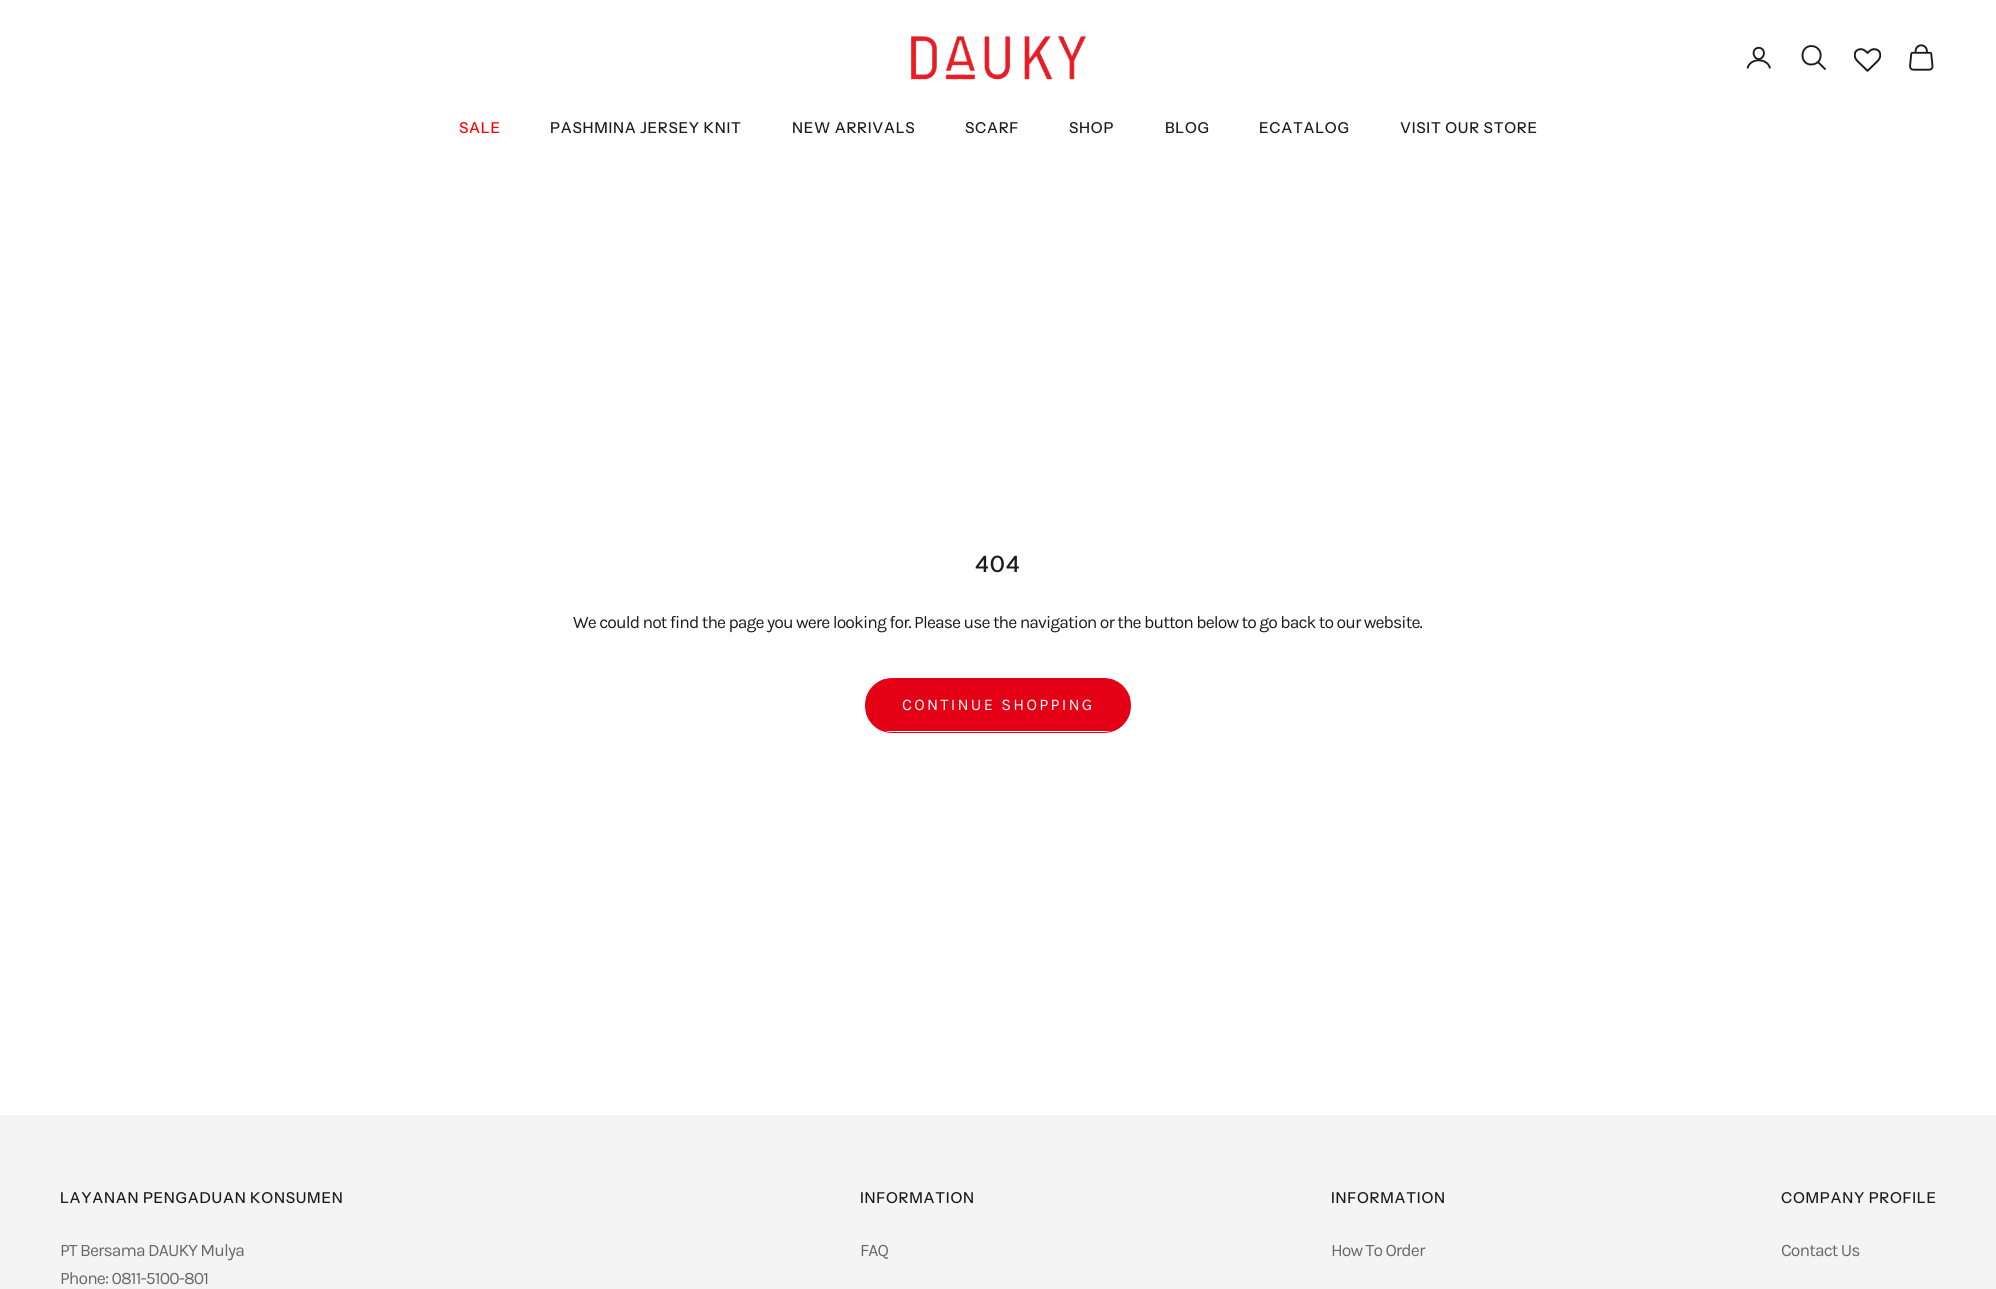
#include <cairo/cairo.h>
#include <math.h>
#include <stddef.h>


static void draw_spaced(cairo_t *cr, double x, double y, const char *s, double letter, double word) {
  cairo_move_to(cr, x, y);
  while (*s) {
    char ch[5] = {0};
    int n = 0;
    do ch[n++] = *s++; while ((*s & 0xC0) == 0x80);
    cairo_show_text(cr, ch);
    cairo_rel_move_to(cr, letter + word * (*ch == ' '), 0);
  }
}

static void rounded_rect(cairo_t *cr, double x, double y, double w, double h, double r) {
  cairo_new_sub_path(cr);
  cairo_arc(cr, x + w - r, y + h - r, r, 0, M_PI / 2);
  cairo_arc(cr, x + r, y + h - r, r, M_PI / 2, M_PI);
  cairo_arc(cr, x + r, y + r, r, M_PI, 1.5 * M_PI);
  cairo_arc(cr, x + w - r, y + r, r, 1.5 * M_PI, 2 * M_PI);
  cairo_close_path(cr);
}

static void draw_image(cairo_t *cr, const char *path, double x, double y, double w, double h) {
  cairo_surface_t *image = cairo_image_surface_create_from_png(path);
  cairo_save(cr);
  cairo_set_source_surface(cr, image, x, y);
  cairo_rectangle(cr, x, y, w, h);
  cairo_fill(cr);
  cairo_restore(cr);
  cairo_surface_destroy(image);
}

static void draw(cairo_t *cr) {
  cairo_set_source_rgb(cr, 1, 1, 1);
  cairo_paint(cr);
  draw_image(cr, "images/1.png", 911, 36, 176, 44);
  draw_image(cr, "images/2.png", 1746, 46, 25, 23);
  cairo_new_path(cr);
  cairo_move_to(cr, 1811.5, 46);
  cairo_curve_to(cr, 1799.5, 46, 1799.5, 65, 1811.5, 64.5);
  cairo_curve_to(cr, 1824, 64, 1823.5, 46.5, 1811.5, 46);
  cairo_close_path(cr);
  cairo_set_source_rgb(cr, 28 / 255.0, 28 / 255.0, 28 / 255.0);
  cairo_set_line_width(cr, 1.9);
  cairo_stroke(cr);
  cairo_new_path(cr);
  cairo_move_to(cr, 1818.5, 62.5);
  cairo_line_to(cr, 1825, 69);
  cairo_set_line_cap(cr, CAIRO_LINE_CAP_ROUND);
  cairo_stroke(cr);
  draw_image(cr, "images/3.png", 1854, 48, 27, 24);
  draw_image(cr, "images/4.png", 1909, 44, 25, 27);
  cairo_save(cr);
  rounded_rect(cr, 865, 678, 266, 55, 27.5);
  cairo_clip(cr);
  cairo_set_source_rgb(cr, 229 / 255.0, 1 / 255.0, 21 / 255.0);
  cairo_rectangle(cr, 866, 679, 264, 52);
  cairo_fill(cr);
  cairo_restore(cr);
  rounded_rect(cr, 865.5, 678.5, 265, 54, 27);
  cairo_set_source_rgb(cr, 229 / 255.0, 1 / 255.0, 21 / 255.0);
  cairo_set_line_width(cr, 1);
  cairo_set_line_cap(cr, CAIRO_LINE_CAP_BUTT);
  cairo_stroke(cr);
  cairo_set_source_rgb(cr, 244 / 255.0, 244 / 255.0, 244 / 255.0);
  cairo_rectangle(cr, 0, 1115, 1996, 174);
  cairo_fill(cr);
  cairo_select_font_face(cr, "Instrument Sans Medium", CAIRO_FONT_SLANT_NORMAL, CAIRO_FONT_WEIGHT_NORMAL);
  cairo_set_font_size(cr, 15);
  cairo_set_source_rgb(cr, 1, 0, 0);
  draw_spaced(cr, 459, 133, "SALE", 0.75, 0);
  cairo_set_source_rgb(cr, 28 / 255.0, 28 / 255.0, 28 / 255.0);
  draw_spaced(cr, 550, 133, "PASHMINA JERSEY KNIT", 0.75, 0);
  draw_spaced(cr, 792, 133, "NEW ARRIVALS", 0.75, 0);
  draw_spaced(cr, 965, 133, "SCARF", 0.75, 0);
  draw_spaced(cr, 1069, 133, "SHOP", 0.75, 0);
  draw_spaced(cr, 1165, 133, "BLOG", 0.75, 0);
  draw_spaced(cr, 1259, 133, "ECATALOG", 0.75, 0);
  draw_spaced(cr, 1400, 133, "VISIT OUR STORE", 0.75, 0);
  cairo_set_font_size(cr, 22.5);
  draw_spaced(cr, 975, 572, "404", 1, 0);
  cairo_select_font_face(cr, "Karla", CAIRO_FONT_SLANT_NORMAL, CAIRO_FONT_WEIGHT_NORMAL);
  cairo_set_font_size(cr, 17.5);
  draw_spaced(cr, 573, 628, "We could not find the page you were looking for. Please use the navigation or the button below to go back to our website.", -0.88, 0);
  cairo_set_font_size(cr, 16.25);
  cairo_set_source_rgb(cr, 1, 1, 1);
  draw_spaced(cr, 902, 710, "CONTINUE SHOPPING", 2.25, 0);
  cairo_select_font_face(cr, "Instrument Sans Medium", CAIRO_FONT_SLANT_NORMAL, CAIRO_FONT_WEIGHT_NORMAL);
  cairo_set_font_size(cr, 15);
  cairo_set_source_rgb(cr, 28 / 255.0, 28 / 255.0, 28 / 255.0);
  draw_spaced(cr, 60, 1203, "LAYANAN PENGADUAN KONSUMEN", 0.75, 0);
  cairo_select_font_face(cr, "Karla", CAIRO_FONT_SLANT_NORMAL, CAIRO_FONT_WEIGHT_NORMAL);
  cairo_set_font_size(cr, 17.5);
  cairo_set_source_rgb(cr, 104 / 255.0, 104 / 255.0, 104 / 255.0);
  draw_spaced(cr, 60, 1256, "PT Bersama DAUKY Mulya", -0.88, 0);
  draw_spaced(cr, 60, 1284, "Phone: 0811-5100-801", -0.88, 0);
  cairo_select_font_face(cr, "Instrument Sans Medium", CAIRO_FONT_SLANT_NORMAL, CAIRO_FONT_WEIGHT_NORMAL);
  cairo_set_font_size(cr, 15);
  cairo_set_source_rgb(cr, 28 / 255.0, 28 / 255.0, 28 / 255.0);
  draw_spaced(cr, 860, 1203, "INFORMATION", 0.75, 0);
  cairo_select_font_face(cr, "Karla", CAIRO_FONT_SLANT_NORMAL, CAIRO_FONT_WEIGHT_NORMAL);
  cairo_set_font_size(cr, 17.5);
  cairo_set_source_rgb(cr, 104 / 255.0, 104 / 255.0, 104 / 255.0);
  draw_spaced(cr, 860, 1256, "FAQ", -0.88, 0);
  cairo_select_font_face(cr, "Instrument Sans Medium", CAIRO_FONT_SLANT_NORMAL, CAIRO_FONT_WEIGHT_NORMAL);
  cairo_set_font_size(cr, 15);
  cairo_set_source_rgb(cr, 28 / 255.0, 28 / 255.0, 28 / 255.0);
  draw_spaced(cr, 1331, 1203, "INFORMATION", 0.75, 0);
  cairo_select_font_face(cr, "Karla", CAIRO_FONT_SLANT_NORMAL, CAIRO_FONT_WEIGHT_NORMAL);
  cairo_set_font_size(cr, 17.5);
  cairo_set_source_rgb(cr, 104 / 255.0, 104 / 255.0, 104 / 255.0);
  draw_spaced(cr, 1331, 1256, "How To Order", -0.88, 0);
  cairo_select_font_face(cr, "Instrument Sans Medium", CAIRO_FONT_SLANT_NORMAL, CAIRO_FONT_WEIGHT_NORMAL);
  cairo_set_font_size(cr, 15);
  cairo_set_source_rgb(cr, 28 / 255.0, 28 / 255.0, 28 / 255.0);
  draw_spaced(cr, 1781, 1203, "COMPANY PROFILE", 0.75, 0);
  cairo_select_font_face(cr, "Karla", CAIRO_FONT_SLANT_NORMAL, CAIRO_FONT_WEIGHT_NORMAL);
  cairo_set_font_size(cr, 17.5);
  cairo_set_source_rgb(cr, 104 / 255.0, 104 / 255.0, 104 / 255.0);
  draw_spaced(cr, 1781, 1256, "Contact Us", -0.88, 0);
}

int main(void) {
  cairo_surface_t *surface = cairo_image_surface_create(CAIRO_FORMAT_RGB24, 1996, 1289);
  cairo_t *cr = cairo_create(surface);
  cairo_font_options_t *options = cairo_font_options_create();
  cairo_font_options_set_hint_metrics(options, CAIRO_HINT_METRICS_OFF);
  cairo_font_options_set_hint_style(options, CAIRO_HINT_STYLE_NONE);
  cairo_set_font_options(cr, options);
  cairo_set_miter_limit(cr, 4);
  draw(cr);
  cairo_surface_write_to_png(surface, "out.png");
  cairo_font_options_destroy(options);
  cairo_destroy(cr);
  cairo_surface_destroy(surface);
  return 0;
}
